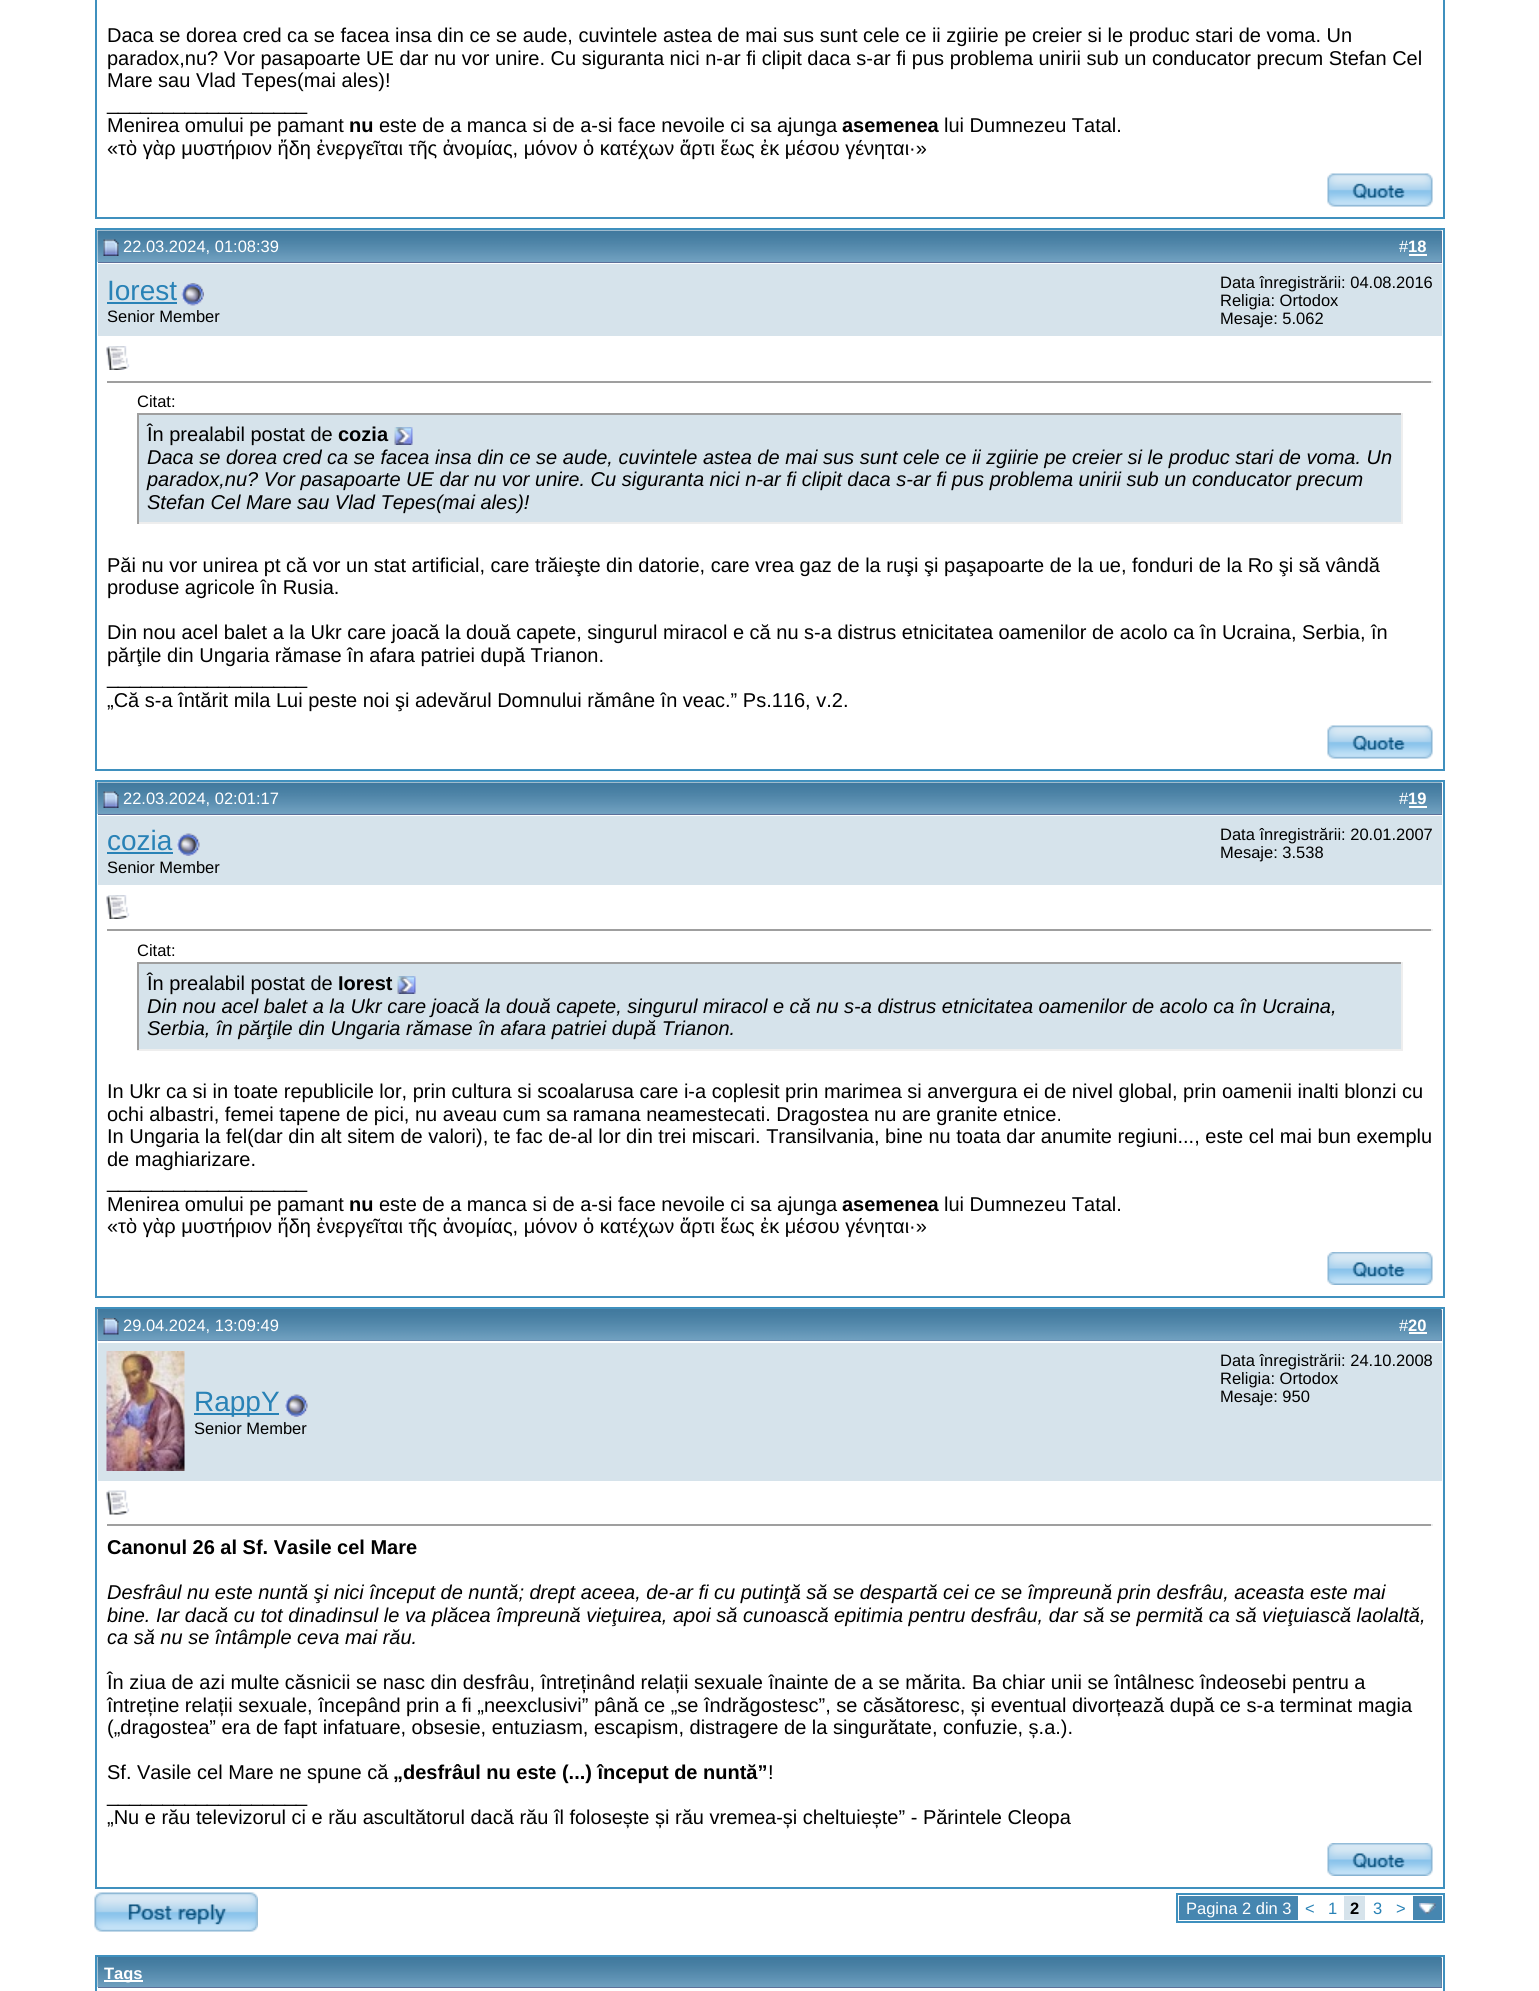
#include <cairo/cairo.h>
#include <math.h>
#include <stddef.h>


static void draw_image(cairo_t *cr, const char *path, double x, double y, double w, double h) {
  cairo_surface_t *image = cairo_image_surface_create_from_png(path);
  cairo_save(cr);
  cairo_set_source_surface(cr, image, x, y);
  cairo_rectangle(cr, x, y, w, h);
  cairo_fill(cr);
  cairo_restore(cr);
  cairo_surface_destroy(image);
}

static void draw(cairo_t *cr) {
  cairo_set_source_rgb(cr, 1, 1, 1);
  cairo_paint(cr);
  cairo_rectangle(cr, 96, -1, 1348, 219);
  cairo_set_source_rgb(cr, 63 / 255.0, 144 / 255.0, 190 / 255.0);
  cairo_stroke(cr);
  draw_image(cr, "images/1.png", 1327, 173, 106, 34);
  cairo_rectangle(cr, 96, 229, 1348, 541);
  cairo_stroke(cr);
  cairo_set_source_rgb(cr, 92 / 255.0, 112 / 255.0, 153 / 255.0);
  cairo_rectangle(cr, 98, 231, 1344, 32);
  cairo_fill(cr);
  draw_image(cr, "images/2.png", 97, 230, 1345, 32);
  draw_image(cr, "images/3.png", 103, 239, 16, 17);
  cairo_set_source_rgb(cr, 1, 1, 1);
  cairo_rectangle(cr, 1409, 254, 18, 2);
  cairo_fill(cr);
  cairo_set_source_rgb(cr, 214 / 255.0, 227 / 255.0, 235 / 255.0);
  cairo_rectangle(cr, 98, 264, 1344, 72);
  cairo_fill(cr);
  cairo_set_source_rgb(cr, 41 / 255.0, 130 / 255.0, 182 / 255.0);
  cairo_rectangle(cr, 107, 302, 70, 2);
  cairo_fill(cr);
  draw_image(cr, "images/4.png", 181, 283, 23, 23);
  draw_image(cr, "images/5.png", 106, 346, 24, 24);
  cairo_set_source_rgb(cr, 159 / 255.0, 159 / 255.0, 159 / 255.0);
  cairo_rectangle(cr, 107, 381, 1326, 2);
  cairo_fill(cr);
  cairo_set_source_rgb(cr, 238 / 255.0, 238 / 255.0, 238 / 255.0);
  cairo_rectangle(cr, 1431, 381, 2, 2);
  cairo_fill(cr);
  cairo_set_source_rgb(cr, 214 / 255.0, 227 / 255.0, 235 / 255.0);
  cairo_rectangle(cr, 139, 415, 1262, 107);
  cairo_fill(cr);
  cairo_set_source_rgb(cr, 159 / 255.0, 159 / 255.0, 159 / 255.0);
  cairo_rectangle(cr, 137, 413, 1266, 2);
  cairo_fill(cr);
  cairo_set_source_rgb(cr, 238 / 255.0, 238 / 255.0, 238 / 255.0);
  cairo_rectangle(cr, 1401, 413, 2, 111);
  cairo_fill(cr);
  cairo_rectangle(cr, 137, 522, 1266, 2);
  cairo_fill(cr);
  cairo_set_source_rgb(cr, 159 / 255.0, 159 / 255.0, 159 / 255.0);
  cairo_rectangle(cr, 137, 413, 2, 111);
  cairo_fill(cr);
  draw_image(cr, "images/6.png", 394, 427, 19, 18);
  draw_image(cr, "images/1.png", 1327, 725, 106, 34);
  cairo_rectangle(cr, 96, 781, 1348, 516);
  cairo_set_source_rgb(cr, 63 / 255.0, 144 / 255.0, 190 / 255.0);
  cairo_stroke(cr);
  cairo_set_source_rgb(cr, 92 / 255.0, 112 / 255.0, 153 / 255.0);
  cairo_rectangle(cr, 98, 783, 1344, 32);
  cairo_fill(cr);
  draw_image(cr, "images/7.png", 97, 782, 1345, 32);
  draw_image(cr, "images/8.png", 103, 791, 16, 17);
  cairo_set_source_rgb(cr, 1, 1, 1);
  cairo_rectangle(cr, 1409, 806, 18, 2);
  cairo_fill(cr);
  cairo_set_source_rgb(cr, 214 / 255.0, 227 / 255.0, 235 / 255.0);
  cairo_rectangle(cr, 98, 816, 1344, 69);
  cairo_fill(cr);
  cairo_set_source_rgb(cr, 41 / 255.0, 130 / 255.0, 182 / 255.0);
  cairo_rectangle(cr, 107, 852, 66, 2);
  cairo_fill(cr);
  draw_image(cr, "images/9.png", 177, 833, 23, 23);
  draw_image(cr, "images/5.png", 106, 895, 24, 24);
  cairo_set_source_rgb(cr, 159 / 255.0, 159 / 255.0, 159 / 255.0);
  cairo_rectangle(cr, 107, 929, 1326, 2);
  cairo_fill(cr);
  cairo_set_source_rgb(cr, 238 / 255.0, 238 / 255.0, 238 / 255.0);
  cairo_rectangle(cr, 1431, 929, 2, 2);
  cairo_fill(cr);
  cairo_set_source_rgb(cr, 214 / 255.0, 227 / 255.0, 235 / 255.0);
  cairo_rectangle(cr, 139, 964, 1262, 85);
  cairo_fill(cr);
  cairo_set_source_rgb(cr, 159 / 255.0, 159 / 255.0, 159 / 255.0);
  cairo_rectangle(cr, 137, 962, 1266, 2);
  cairo_fill(cr);
  cairo_set_source_rgb(cr, 238 / 255.0, 238 / 255.0, 238 / 255.0);
  cairo_rectangle(cr, 1401, 962, 2, 88);
  cairo_fill(cr);
  cairo_rectangle(cr, 137, 1049, 1266, 2);
  cairo_fill(cr);
  cairo_set_source_rgb(cr, 159 / 255.0, 159 / 255.0, 159 / 255.0);
  cairo_rectangle(cr, 137, 962, 2, 88);
  cairo_fill(cr);
  draw_image(cr, "images/6.png", 397, 976, 19, 18);
  draw_image(cr, "images/10.png", 1327, 1252, 106, 33);
  cairo_rectangle(cr, 96, 1308, 1348, 580);
  cairo_set_source_rgb(cr, 63 / 255.0, 144 / 255.0, 190 / 255.0);
  cairo_stroke(cr);
  cairo_set_source_rgb(cr, 92 / 255.0, 112 / 255.0, 153 / 255.0);
  cairo_rectangle(cr, 98, 1310, 1344, 31);
  cairo_fill(cr);
  draw_image(cr, "images/11.png", 97, 1309, 1345, 32);
  draw_image(cr, "images/12.png", 103, 1318, 16, 17);
  cairo_set_source_rgb(cr, 1, 1, 1);
  cairo_rectangle(cr, 1409, 1332, 18, 2);
  cairo_fill(cr);
  cairo_set_source_rgb(cr, 214 / 255.0, 227 / 255.0, 235 / 255.0);
  cairo_rectangle(cr, 98, 1343, 1344, 138);
  cairo_fill(cr);
  draw_image(cr, "images/13.png", 106, 1351, 79, 120);
  cairo_set_source_rgb(cr, 41 / 255.0, 130 / 255.0, 182 / 255.0);
  cairo_rectangle(cr, 194, 1413, 85, 2);
  cairo_fill(cr);
  draw_image(cr, "images/14.png", 285, 1394, 23, 23);
  draw_image(cr, "images/15.png", 106, 1490, 24, 25);
  cairo_set_source_rgb(cr, 159 / 255.0, 159 / 255.0, 159 / 255.0);
  cairo_rectangle(cr, 107, 1524, 1326, 2);
  cairo_fill(cr);
  cairo_set_source_rgb(cr, 238 / 255.0, 238 / 255.0, 238 / 255.0);
  cairo_rectangle(cr, 1431, 1524, 2, 2);
  cairo_fill(cr);
  draw_image(cr, "images/10.png", 1327, 1843, 106, 33);
  draw_image(cr, "images/16.png", 94, 1892, 164, 40);
  cairo_rectangle(cr, 1177, 1894, 267, 28);
  cairo_set_source_rgb(cr, 63 / 255.0, 144 / 255.0, 190 / 255.0);
  cairo_stroke(cr);
  cairo_set_source_rgb(cr, 70 / 255.0, 134 / 255.0, 176 / 255.0);
  cairo_rectangle(cr, 1179, 1896, 119, 24);
  cairo_fill(cr);
  cairo_set_source_rgb(cr, 214 / 255.0, 227 / 255.0, 235 / 255.0);
  cairo_rectangle(cr, 1344, 1896, 21, 24);
  cairo_fill(cr);
  cairo_set_source_rgb(cr, 70 / 255.0, 134 / 255.0, 176 / 255.0);
  cairo_rectangle(cr, 1413, 1896, 29, 24);
  cairo_fill(cr);
  draw_image(cr, "images/17.png", 1419, 1903, 17, 11);
  cairo_rectangle(cr, 96, 1956, 1348, 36);
  cairo_set_source_rgb(cr, 63 / 255.0, 144 / 255.0, 190 / 255.0);
  cairo_stroke(cr);
  cairo_set_source_rgb(cr, 92 / 255.0, 112 / 255.0, 153 / 255.0);
  cairo_rectangle(cr, 98, 1958, 1344, 30);
  cairo_fill(cr);
  draw_image(cr, "images/18.png", 97, 1957, 1345, 30);
  cairo_set_source_rgb(cr, 1, 1, 1);
  cairo_rectangle(cr, 104, 1980, 39, 2);
  cairo_fill(cr);
  cairo_select_font_face(cr, "Liberation Sans", CAIRO_FONT_SLANT_NORMAL, CAIRO_FONT_WEIGHT_NORMAL);
  cairo_set_font_size(cr, 20);
  cairo_set_source_rgb(cr, 0, 0, 0);
  cairo_move_to(cr, 107, 42);
  cairo_show_text(cr, "Daca se dorea cred ca se facea insa din ce se aude, cuvintele astea de mai sus sunt cele ce ii zgiirie pe creier si le produc stari de voma. Un");
  cairo_move_to(cr, 107, 65);
  cairo_show_text(cr, "paradox,nu? Vor pasapoarte UE dar nu vor unire. Cu siguranta nici n-ar fi clipit daca s-ar fi pus problema unirii sub un conducator precum Stefan Cel");
  cairo_move_to(cr, 107, 87);
  cairo_show_text(cr, "Mare sau Vlad Tepes(mai ales)!");
  cairo_move_to(cr, 107, 110);
  cairo_show_text(cr, "__________________");
  cairo_move_to(cr, 107, 132);
  cairo_show_text(cr, "Menirea omului pe pamant");
  cairo_select_font_face(cr, "Liberation Sans", CAIRO_FONT_SLANT_NORMAL, CAIRO_FONT_WEIGHT_BOLD);
  cairo_move_to(cr, 349, 132);
  cairo_show_text(cr, "nu");
  cairo_select_font_face(cr, "Liberation Sans", CAIRO_FONT_SLANT_NORMAL, CAIRO_FONT_WEIGHT_NORMAL);
  cairo_move_to(cr, 379, 132);
  cairo_show_text(cr, "este de a manca si de a-si face nevoile ci sa ajunga");
  cairo_select_font_face(cr, "Liberation Sans", CAIRO_FONT_SLANT_NORMAL, CAIRO_FONT_WEIGHT_BOLD);
  cairo_move_to(cr, 842, 132);
  cairo_show_text(cr, "asemenea");
  cairo_select_font_face(cr, "Liberation Sans", CAIRO_FONT_SLANT_NORMAL, CAIRO_FONT_WEIGHT_NORMAL);
  cairo_move_to(cr, 944, 132);
  cairo_show_text(cr, "lui Dumnezeu Tatal.");
  cairo_move_to(cr, 107, 155);
  cairo_show_text(cr, "«τὸ γὰρ μυστήριον ἤδη ἐνεργεῖται τῆς ἀνομίας, μόνον ὁ κατέχων ἄρτι ἕως ἐκ μέσου γένηται·»");
  cairo_set_font_size(cr, 16.5);
  cairo_set_source_rgb(cr, 1, 1, 1);
  cairo_move_to(cr, 123, 252);
  cairo_show_text(cr, "22.03.2024, 01:08:39");
  cairo_move_to(cr, 1399, 252);
  cairo_show_text(cr, "#");
  cairo_select_font_face(cr, "Liberation Sans", CAIRO_FONT_SLANT_NORMAL, CAIRO_FONT_WEIGHT_BOLD);
  cairo_move_to(cr, 1408, 252);
  cairo_show_text(cr, "18");
  cairo_select_font_face(cr, "Liberation Sans", CAIRO_FONT_SLANT_NORMAL, CAIRO_FONT_WEIGHT_NORMAL);
  cairo_set_font_size(cr, 28);
  cairo_set_source_rgb(cr, 41 / 255.0, 130 / 255.0, 182 / 255.0);
  cairo_move_to(cr, 107, 300);
  cairo_show_text(cr, "Iorest");
  cairo_set_font_size(cr, 16.5);
  cairo_set_source_rgb(cr, 0, 0, 0);
  cairo_move_to(cr, 107, 322);
  cairo_show_text(cr, "Senior Member");
  cairo_move_to(cr, 1220, 288);
  cairo_show_text(cr, "Data înregistrării: 04.08.2016");
  cairo_move_to(cr, 1220, 306);
  cairo_show_text(cr, "Religia: Ortodox");
  cairo_move_to(cr, 1220, 324);
  cairo_show_text(cr, "Mesaje: 5.062");
  cairo_move_to(cr, 137, 407);
  cairo_show_text(cr, "Citat:");
  cairo_set_font_size(cr, 20);
  cairo_move_to(cr, 147, 441);
  cairo_show_text(cr, "În prealabil postat de");
  cairo_select_font_face(cr, "Liberation Sans", CAIRO_FONT_SLANT_NORMAL, CAIRO_FONT_WEIGHT_BOLD);
  cairo_move_to(cr, 338, 441);
  cairo_show_text(cr, "cozia");
  cairo_select_font_face(cr, "Liberation Sans", CAIRO_FONT_SLANT_ITALIC, CAIRO_FONT_WEIGHT_NORMAL);
  cairo_move_to(cr, 147, 464);
  cairo_show_text(cr, "Daca se dorea cred ca se facea insa din ce se aude, cuvintele astea de mai sus sunt cele ce ii zgiirie pe creier si le produc stari de voma. Un");
  cairo_move_to(cr, 147, 486);
  cairo_show_text(cr, "paradox,nu? Vor pasapoarte UE dar nu vor unire. Cu siguranta nici n-ar fi clipit daca s-ar fi pus problema unirii sub un conducator precum");
  cairo_move_to(cr, 147, 509);
  cairo_show_text(cr, "Stefan Cel Mare sau Vlad Tepes(mai ales)!");
  cairo_select_font_face(cr, "Liberation Sans", CAIRO_FONT_SLANT_NORMAL, CAIRO_FONT_WEIGHT_NORMAL);
  cairo_move_to(cr, 107, 572);
  cairo_show_text(cr, "Păi nu vor unirea pt că vor un stat artificial, care trăieşte din datorie, care vrea gaz de la ruşi şi paşapoarte de la ue, fonduri de la Ro şi să vândă");
  cairo_move_to(cr, 107, 594);
  cairo_show_text(cr, "produse agricole în Rusia.");
  cairo_move_to(cr, 107, 639);
  cairo_show_text(cr, "Din nou acel balet a la Ukr care joacă la două capete, singurul miracol e că nu s-a distrus etnicitatea oamenilor de acolo ca în Ucraina, Serbia, în");
  cairo_move_to(cr, 107, 662);
  cairo_show_text(cr, "părţile din Ungaria rămase în afara patriei după Trianon.");
  cairo_move_to(cr, 107, 684);
  cairo_show_text(cr, "__________________");
  cairo_move_to(cr, 107, 707);
  cairo_show_text(cr, "„Că s-a întărit mila Lui peste noi şi adevărul Domnului rămâne în veac.” Ps.116, v.2.");
  cairo_set_font_size(cr, 16.5);
  cairo_set_source_rgb(cr, 1, 1, 1);
  cairo_move_to(cr, 123, 804);
  cairo_show_text(cr, "22.03.2024, 02:01:17");
  cairo_move_to(cr, 1399, 804);
  cairo_show_text(cr, "#");
  cairo_select_font_face(cr, "Liberation Sans", CAIRO_FONT_SLANT_NORMAL, CAIRO_FONT_WEIGHT_BOLD);
  cairo_move_to(cr, 1408, 804);
  cairo_show_text(cr, "19");
  cairo_select_font_face(cr, "Liberation Sans", CAIRO_FONT_SLANT_NORMAL, CAIRO_FONT_WEIGHT_NORMAL);
  cairo_set_font_size(cr, 28);
  cairo_set_source_rgb(cr, 41 / 255.0, 130 / 255.0, 182 / 255.0);
  cairo_move_to(cr, 107, 850);
  cairo_show_text(cr, "cozia");
  cairo_set_font_size(cr, 16.5);
  cairo_set_source_rgb(cr, 0, 0, 0);
  cairo_move_to(cr, 107, 873);
  cairo_show_text(cr, "Senior Member");
  cairo_move_to(cr, 1220, 840);
  cairo_show_text(cr, "Data înregistrării: 20.01.2007");
  cairo_move_to(cr, 1220, 858);
  cairo_show_text(cr, "Mesaje: 3.538");
  cairo_move_to(cr, 137, 956);
  cairo_show_text(cr, "Citat:");
  cairo_set_font_size(cr, 20);
  cairo_move_to(cr, 147, 990);
  cairo_show_text(cr, "În prealabil postat de");
  cairo_select_font_face(cr, "Liberation Sans", CAIRO_FONT_SLANT_NORMAL, CAIRO_FONT_WEIGHT_BOLD);
  cairo_move_to(cr, 338, 990);
  cairo_show_text(cr, "Iorest");
  cairo_select_font_face(cr, "Liberation Sans", CAIRO_FONT_SLANT_ITALIC, CAIRO_FONT_WEIGHT_NORMAL);
  cairo_move_to(cr, 147, 1013);
  cairo_show_text(cr, "Din nou acel balet a la Ukr care joacă la două capete, singurul miracol e că nu s-a distrus etnicitatea oamenilor de acolo ca în Ucraina,");
  cairo_move_to(cr, 147, 1035);
  cairo_show_text(cr, "Serbia, în părţile din Ungaria rămase în afara patriei după Trianon.");
  cairo_select_font_face(cr, "Liberation Sans", CAIRO_FONT_SLANT_NORMAL, CAIRO_FONT_WEIGHT_NORMAL);
  cairo_move_to(cr, 107, 1098);
  cairo_show_text(cr, "In Ukr ca si in toate republicile lor, prin cultura si scoalarusa care i-a coplesit prin marimea si anvergura ei de nivel global, prin oamenii inalti blonzi cu");
  cairo_move_to(cr, 107, 1121);
  cairo_show_text(cr, "ochi albastri, femei tapene de pici, nu aveau cum sa ramana neamestecati. Dragostea nu are granite etnice.");
  cairo_move_to(cr, 107, 1143);
  cairo_show_text(cr, "In Ungaria la fel(dar din alt sitem de valori), te fac de-al lor din trei miscari. Transilvania, bine nu toata dar anumite regiuni..., este cel mai bun exemplu");
  cairo_move_to(cr, 107, 1166);
  cairo_show_text(cr, "de maghiarizare.");
  cairo_move_to(cr, 107, 1188);
  cairo_show_text(cr, "__________________");
  cairo_move_to(cr, 107, 1211);
  cairo_show_text(cr, "Menirea omului pe pamant");
  cairo_select_font_face(cr, "Liberation Sans", CAIRO_FONT_SLANT_NORMAL, CAIRO_FONT_WEIGHT_BOLD);
  cairo_move_to(cr, 349, 1211);
  cairo_show_text(cr, "nu");
  cairo_select_font_face(cr, "Liberation Sans", CAIRO_FONT_SLANT_NORMAL, CAIRO_FONT_WEIGHT_NORMAL);
  cairo_move_to(cr, 379, 1211);
  cairo_show_text(cr, "este de a manca si de a-si face nevoile ci sa ajunga");
  cairo_select_font_face(cr, "Liberation Sans", CAIRO_FONT_SLANT_NORMAL, CAIRO_FONT_WEIGHT_BOLD);
  cairo_move_to(cr, 842, 1211);
  cairo_show_text(cr, "asemenea");
  cairo_select_font_face(cr, "Liberation Sans", CAIRO_FONT_SLANT_NORMAL, CAIRO_FONT_WEIGHT_NORMAL);
  cairo_move_to(cr, 944, 1211);
  cairo_show_text(cr, "lui Dumnezeu Tatal.");
  cairo_move_to(cr, 107, 1233);
  cairo_show_text(cr, "«τὸ γὰρ μυστήριον ἤδη ἐνεργεῖται τῆς ἀνομίας, μόνον ὁ κατέχων ἄρτι ἕως ἐκ μέσου γένηται·»");
  cairo_set_font_size(cr, 16.5);
  cairo_set_source_rgb(cr, 1, 1, 1);
  cairo_move_to(cr, 123, 1331);
  cairo_show_text(cr, "29.04.2024, 13:09:49");
  cairo_move_to(cr, 1399, 1331);
  cairo_show_text(cr, "#");
  cairo_select_font_face(cr, "Liberation Sans", CAIRO_FONT_SLANT_NORMAL, CAIRO_FONT_WEIGHT_BOLD);
  cairo_move_to(cr, 1408, 1331);
  cairo_show_text(cr, "20");
  cairo_select_font_face(cr, "Liberation Sans", CAIRO_FONT_SLANT_NORMAL, CAIRO_FONT_WEIGHT_NORMAL);
  cairo_set_source_rgb(cr, 0, 0, 0);
  cairo_move_to(cr, 1220, 1366);
  cairo_show_text(cr, "Data înregistrării: 24.10.2008");
  cairo_move_to(cr, 1220, 1384);
  cairo_show_text(cr, "Religia: Ortodox");
  cairo_move_to(cr, 1220, 1402);
  cairo_show_text(cr, "Mesaje: 950");
  cairo_set_font_size(cr, 28);
  cairo_set_source_rgb(cr, 41 / 255.0, 130 / 255.0, 182 / 255.0);
  cairo_move_to(cr, 194, 1411);
  cairo_show_text(cr, "RappY");
  cairo_set_font_size(cr, 16.5);
  cairo_set_source_rgb(cr, 0, 0, 0);
  cairo_move_to(cr, 194, 1434);
  cairo_show_text(cr, "Senior Member");
  cairo_select_font_face(cr, "Liberation Sans", CAIRO_FONT_SLANT_NORMAL, CAIRO_FONT_WEIGHT_BOLD);
  cairo_set_font_size(cr, 20);
  cairo_move_to(cr, 107, 1554);
  cairo_show_text(cr, "Canonul 26 al Sf. Vasile cel Mare");
  cairo_select_font_face(cr, "Liberation Sans", CAIRO_FONT_SLANT_ITALIC, CAIRO_FONT_WEIGHT_NORMAL);
  cairo_move_to(cr, 107, 1599);
  cairo_show_text(cr, "Desfrâul nu este nuntă şi nici început de nuntă; drept aceea, de-ar fi cu putinţă să se despartă cei ce se împreună prin desfrâu, aceasta este mai");
  cairo_move_to(cr, 107, 1622);
  cairo_show_text(cr, "bine. Iar dacă cu tot dinadinsul le va plăcea împreună vieţuirea, apoi să cunoască epitimia pentru desfrâu, dar să se permită ca să vieţuiască laolaltă,");
  cairo_move_to(cr, 107, 1644);
  cairo_show_text(cr, "ca să nu se întâmple ceva mai rău.");
  cairo_select_font_face(cr, "Liberation Sans", CAIRO_FONT_SLANT_NORMAL, CAIRO_FONT_WEIGHT_NORMAL);
  cairo_move_to(cr, 107, 1689);
  cairo_show_text(cr, "În ziua de azi multe căsnicii se nasc din desfrâu, întreținând relații sexuale înainte de a se mărita. Ba chiar unii se întâlnesc îndeosebi pentru a");
  cairo_move_to(cr, 107, 1712);
  cairo_show_text(cr, "întreține relații sexuale, începând prin a fi „neexclusivi” până ce „se îndrăgostesc”, se căsătoresc, și eventual divorțează după ce s-a terminat magia");
  cairo_move_to(cr, 107, 1734);
  cairo_show_text(cr, "(„dragostea” era de fapt infatuare, obsesie, entuziasm, escapism, distragere de la singurătate, confuzie, ș.a.).");
  cairo_move_to(cr, 107, 1779);
  cairo_show_text(cr, "Sf. Vasile cel Mare ne spune că");
  cairo_select_font_face(cr, "Liberation Sans", CAIRO_FONT_SLANT_NORMAL, CAIRO_FONT_WEIGHT_BOLD);
  cairo_move_to(cr, 393, 1779);
  cairo_show_text(cr, "„desfrâul nu este (...) început de nuntă”");
  cairo_select_font_face(cr, "Liberation Sans", CAIRO_FONT_SLANT_NORMAL, CAIRO_FONT_WEIGHT_NORMAL);
  cairo_move_to(cr, 768, 1779);
  cairo_show_text(cr, "!");
  cairo_move_to(cr, 107, 1802);
  cairo_show_text(cr, "__________________");
  cairo_move_to(cr, 107, 1824);
  cairo_show_text(cr, "„Nu e rău televizorul ci e rău ascultătorul dacă rău îl folosește și rău vremea-și cheltuiește” - Părintele Cleopa");
  cairo_set_font_size(cr, 16.5);
  cairo_set_source_rgb(cr, 1, 1, 1);
  cairo_move_to(cr, 1186, 1914);
  cairo_show_text(cr, "Pagina 2 din 3");
  cairo_set_source_rgb(cr, 41 / 255.0, 130 / 255.0, 182 / 255.0);
  cairo_move_to(cr, 1305, 1914);
  cairo_show_text(cr, "<");
  cairo_move_to(cr, 1328, 1914);
  cairo_show_text(cr, "1");
  cairo_select_font_face(cr, "Liberation Sans", CAIRO_FONT_SLANT_NORMAL, CAIRO_FONT_WEIGHT_BOLD);
  cairo_set_source_rgb(cr, 0, 0, 0);
  cairo_move_to(cr, 1350, 1914);
  cairo_show_text(cr, "2");
  cairo_select_font_face(cr, "Liberation Sans", CAIRO_FONT_SLANT_NORMAL, CAIRO_FONT_WEIGHT_NORMAL);
  cairo_set_source_rgb(cr, 41 / 255.0, 130 / 255.0, 182 / 255.0);
  cairo_move_to(cr, 1373, 1914);
  cairo_show_text(cr, "3");
  cairo_move_to(cr, 1396, 1914);
  cairo_show_text(cr, ">");
  cairo_select_font_face(cr, "Liberation Sans", CAIRO_FONT_SLANT_NORMAL, CAIRO_FONT_WEIGHT_BOLD);
  cairo_set_source_rgb(cr, 1, 1, 1);
  cairo_move_to(cr, 104, 1979);
  cairo_show_text(cr, "Tags");
}

int main(void) {
  cairo_surface_t *surface = cairo_image_surface_create(CAIRO_FORMAT_RGB24, 1539, 1991);
  cairo_t *cr = cairo_create(surface);
  cairo_font_options_t *options = cairo_font_options_create();
  cairo_font_options_set_hint_metrics(options, CAIRO_HINT_METRICS_OFF);
  cairo_font_options_set_hint_style(options, CAIRO_HINT_STYLE_NONE);
  cairo_set_font_options(cr, options);
  cairo_set_miter_limit(cr, 4);
  draw(cr);
  cairo_surface_write_to_png(surface, "out.png");
  cairo_font_options_destroy(options);
  cairo_destroy(cr);
  cairo_surface_destroy(surface);
  return 0;
}
